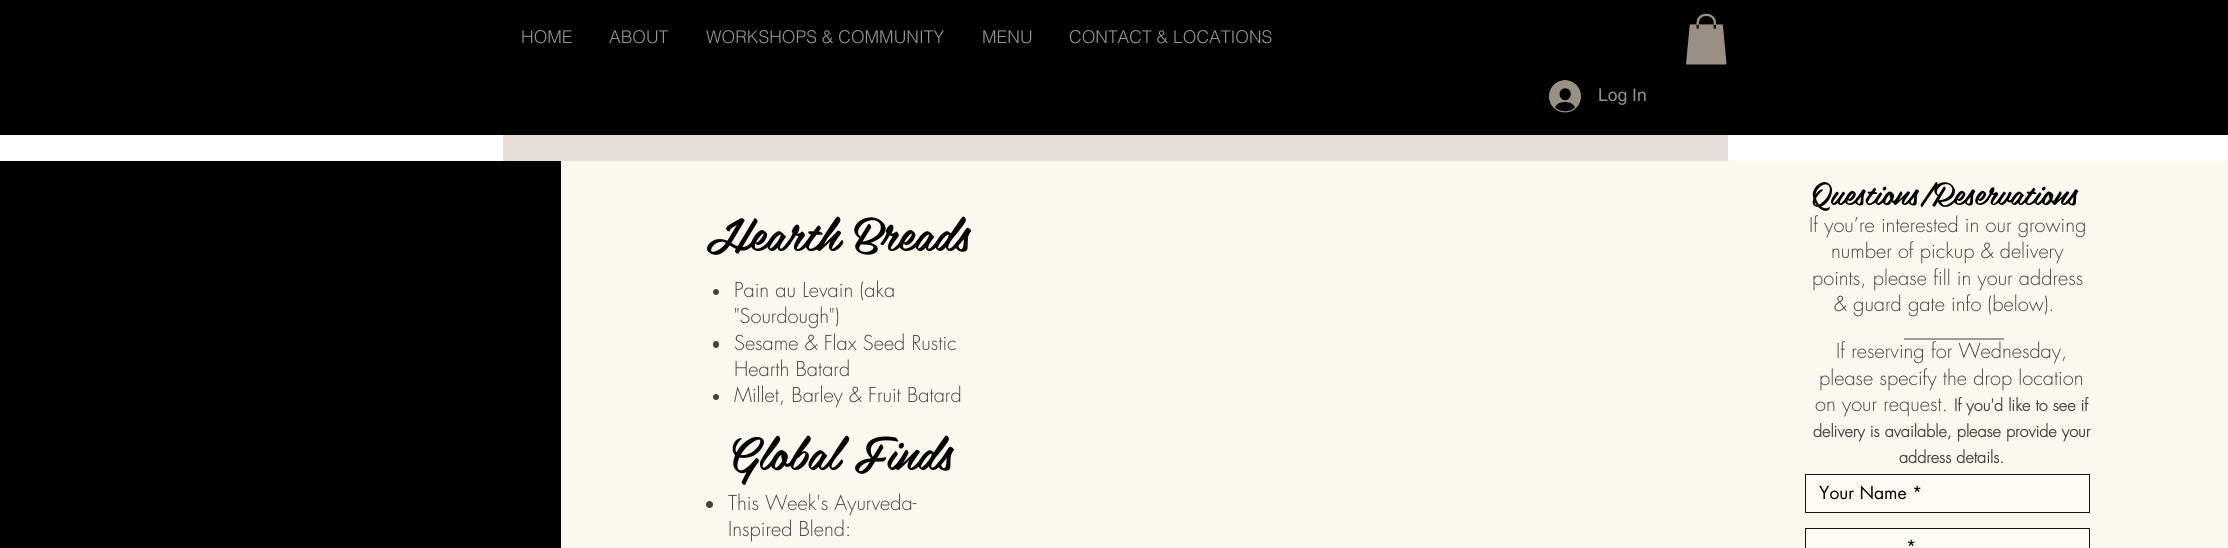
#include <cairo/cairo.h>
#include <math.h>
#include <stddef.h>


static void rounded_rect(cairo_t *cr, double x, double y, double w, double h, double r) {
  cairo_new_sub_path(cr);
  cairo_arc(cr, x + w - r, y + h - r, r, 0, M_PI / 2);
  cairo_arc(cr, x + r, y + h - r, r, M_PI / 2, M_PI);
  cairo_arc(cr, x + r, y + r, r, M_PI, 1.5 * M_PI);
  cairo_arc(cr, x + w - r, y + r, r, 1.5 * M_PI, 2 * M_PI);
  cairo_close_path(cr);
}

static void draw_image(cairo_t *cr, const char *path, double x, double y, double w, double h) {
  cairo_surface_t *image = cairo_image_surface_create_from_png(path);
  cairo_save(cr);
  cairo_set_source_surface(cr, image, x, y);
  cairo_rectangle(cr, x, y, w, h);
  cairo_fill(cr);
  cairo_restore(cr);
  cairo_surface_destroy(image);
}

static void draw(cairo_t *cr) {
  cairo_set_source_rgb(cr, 1, 1, 1);
  cairo_paint(cr);
  cairo_set_source_rgb(cr, 0, 0, 0);
  cairo_rectangle(cr, 0, 0, 2228, 135);
  cairo_fill(cr);
  draw_image(cr, "images/1.png", 1686, 13, 41, 52);
  draw_image(cr, "images/2.png", 1549, 80, 32, 33);
  cairo_set_source_rgb(cr, 230 / 255.0, 222 / 255.0, 214 / 255.0);
  cairo_rectangle(cr, 503, 135, 1225, 26);
  cairo_fill(cr);
  cairo_set_source_rgb(cr, 0, 0, 0);
  cairo_rectangle(cr, 0, 161, 561, 387);
  cairo_fill(cr);
  cairo_set_source_rgb(cr, 252 / 255.0, 248 / 255.0, 237 / 255.0);
  cairo_rectangle(cr, 561, 161, 1667, 387);
  cairo_fill(cr);
  cairo_set_source_rgb(cr, 66 / 255.0, 66 / 255.0, 66 / 255.0);
  cairo_arc(cr, 716, 292, 3, 0, 2 * M_PI);
  cairo_fill(cr);
  rounded_rect(cr, 713, 341, 6, 7, 3);
  cairo_fill(cr);
  cairo_arc(cr, 716, 397, 3, 0, 2 * M_PI);
  cairo_fill(cr);
  cairo_arc(cr, 709.5, 504.5, 3.5, 0, 2 * M_PI);
  cairo_fill(cr);
  cairo_set_source_rgb(cr, 253 / 255.0, 250 / 255.0, 241 / 255.0);
  cairo_rectangle(cr, 1805.5, 474.5, 284, 38);
  cairo_fill_preserve(cr);
  cairo_set_source_rgb(cr, 20 / 255.0, 20 / 255.0, 20 / 255.0);
  cairo_set_line_width(cr, 1);
  cairo_stroke(cr);
  cairo_set_source_rgb(cr, 253 / 255.0, 250 / 255.0, 241 / 255.0);
  cairo_rectangle(cr, 1805.5, 528.5, 284, 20);
  cairo_fill_preserve(cr);
  cairo_set_source_rgb(cr, 20 / 255.0, 20 / 255.0, 20 / 255.0);
  cairo_stroke(cr);
  cairo_select_font_face(cr, "helvetica Light", CAIRO_FONT_SLANT_NORMAL, CAIRO_FONT_WEIGHT_NORMAL);
  cairo_set_font_size(cr, 17.5);
  cairo_set_source_rgb(cr, 150 / 255.0, 150 / 255.0, 150 / 255.0);
  cairo_move_to(cr, 521, 43);
  cairo_show_text(cr, "HOME");
  cairo_move_to(cr, 609, 43);
  cairo_show_text(cr, "ABOUT");
  cairo_move_to(cr, 706, 43);
  cairo_show_text(cr, "WORKSHOPS & COMMUNITY");
  cairo_move_to(cr, 982, 43);
  cairo_show_text(cr, "MENU");
  cairo_move_to(cr, 1069, 43);
  cairo_show_text(cr, "CONTACT & LOCATIONS");
  cairo_select_font_face(cr, "helvetica", CAIRO_FONT_SLANT_NORMAL, CAIRO_FONT_WEIGHT_NORMAL);
  cairo_set_source_rgb(cr, 153 / 255.0, 143 / 255.0, 132 / 255.0);
  cairo_move_to(cr, 1598, 101);
  cairo_show_text(cr, "Log In");
  cairo_select_font_face(cr, "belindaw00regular", CAIRO_FONT_SLANT_NORMAL, CAIRO_FONT_WEIGHT_NORMAL);
  cairo_set_font_size(cr, 46.25);
  cairo_set_source_rgb(cr, 0, 0, 0);
  cairo_move_to(cr, 706, 251);
  cairo_show_text(cr, "Hearth Breads");
  cairo_select_font_face(cr, "futura Light", CAIRO_FONT_SLANT_NORMAL, CAIRO_FONT_WEIGHT_NORMAL);
  cairo_set_font_size(cr, 20);
  cairo_set_source_rgb(cr, 66 / 255.0, 66 / 255.0, 66 / 255.0);
  cairo_move_to(cr, 734, 297);
  cairo_show_text(cr, "Pain au Levain (aka");
  cairo_move_to(cr, 734, 323);
  cairo_show_text(cr, "\"Sourdough\")");
  cairo_move_to(cr, 734, 350);
  cairo_show_text(cr, "Sesame & Flax Seed Rustic");
  cairo_move_to(cr, 734, 376);
  cairo_show_text(cr, "Hearth Batard");
  cairo_move_to(cr, 734, 402);
  cairo_show_text(cr, "Millet, Barley & Fruit Batard");
  cairo_select_font_face(cr, "belindaw00regular", CAIRO_FONT_SLANT_NORMAL, CAIRO_FONT_WEIGHT_NORMAL);
  cairo_set_font_size(cr, 46.25);
  cairo_set_source_rgb(cr, 0, 0, 0);
  cairo_move_to(cr, 728, 470);
  cairo_show_text(cr, "Global Finds");
  cairo_select_font_face(cr, "futura Light", CAIRO_FONT_SLANT_NORMAL, CAIRO_FONT_WEIGHT_NORMAL);
  cairo_set_font_size(cr, 20);
  cairo_set_source_rgb(cr, 66 / 255.0, 66 / 255.0, 66 / 255.0);
  cairo_move_to(cr, 728, 510);
  cairo_show_text(cr, "This Week's Ayurveda-");
  cairo_move_to(cr, 728, 536);
  cairo_show_text(cr, "Inspired Blend:");
  cairo_select_font_face(cr, "belindaw00regular", CAIRO_FONT_SLANT_NORMAL, CAIRO_FONT_WEIGHT_NORMAL);
  cairo_set_font_size(cr, 31.25);
  cairo_set_source_rgb(cr, 0, 0, 0);
  cairo_move_to(cr, 1812, 205);
  cairo_show_text(cr, "Questions/Reservations");
  cairo_select_font_face(cr, "futura Light", CAIRO_FONT_SLANT_NORMAL, CAIRO_FONT_WEIGHT_NORMAL);
  cairo_set_font_size(cr, 20);
  cairo_set_source_rgb(cr, 66 / 255.0, 66 / 255.0, 66 / 255.0);
  cairo_move_to(cr, 1809, 232);
  cairo_show_text(cr, "If you’re interested in our growing");
  cairo_move_to(cr, 1831, 258);
  cairo_show_text(cr, "number of pickup & delivery");
  cairo_move_to(cr, 1812, 285);
  cairo_show_text(cr, "points, please fill in your address");
  cairo_move_to(cr, 1834, 311);
  cairo_show_text(cr, "& guard gate info (below).");
  cairo_move_to(cr, 1904, 337);
  cairo_show_text(cr, "__________");
  cairo_move_to(cr, 1836, 358);
  cairo_show_text(cr, "If reserving for Wednesday,");
  cairo_move_to(cr, 1819, 385);
  cairo_show_text(cr, "please specify the drop location");
  cairo_move_to(cr, 1815, 411);
  cairo_show_text(cr, "on your request.");
  cairo_select_font_face(cr, "futura", CAIRO_FONT_SLANT_NORMAL, CAIRO_FONT_WEIGHT_BOLD);
  cairo_set_font_size(cr, 16.25);
  cairo_move_to(cr, 1954, 411);
  cairo_show_text(cr, "If you'd like to see if");
  cairo_move_to(cr, 1813, 437);
  cairo_show_text(cr, "delivery is available, please provide your");
  cairo_move_to(cr, 1899, 463);
  cairo_show_text(cr, "address details.");
  cairo_select_font_face(cr, "futura", CAIRO_FONT_SLANT_NORMAL, CAIRO_FONT_WEIGHT_NORMAL);
  cairo_set_font_size(cr, 17.5);
  cairo_set_source_rgb(cr, 0, 0, 0);
  cairo_move_to(cr, 1819, 499);
  cairo_show_text(cr, "Your Name *");
  cairo_move_to(cr, 1906, 553);
  cairo_show_text(cr, "*");
}

int main(void) {
  cairo_surface_t *surface = cairo_image_surface_create(CAIRO_FORMAT_RGB24, 2228, 548);
  cairo_t *cr = cairo_create(surface);
  cairo_font_options_t *options = cairo_font_options_create();
  cairo_font_options_set_hint_metrics(options, CAIRO_HINT_METRICS_OFF);
  cairo_font_options_set_hint_style(options, CAIRO_HINT_STYLE_NONE);
  cairo_set_font_options(cr, options);
  cairo_set_miter_limit(cr, 4);
  draw(cr);
  cairo_surface_write_to_png(surface, "out.png");
  cairo_font_options_destroy(options);
  cairo_destroy(cr);
  cairo_surface_destroy(surface);
  return 0;
}
